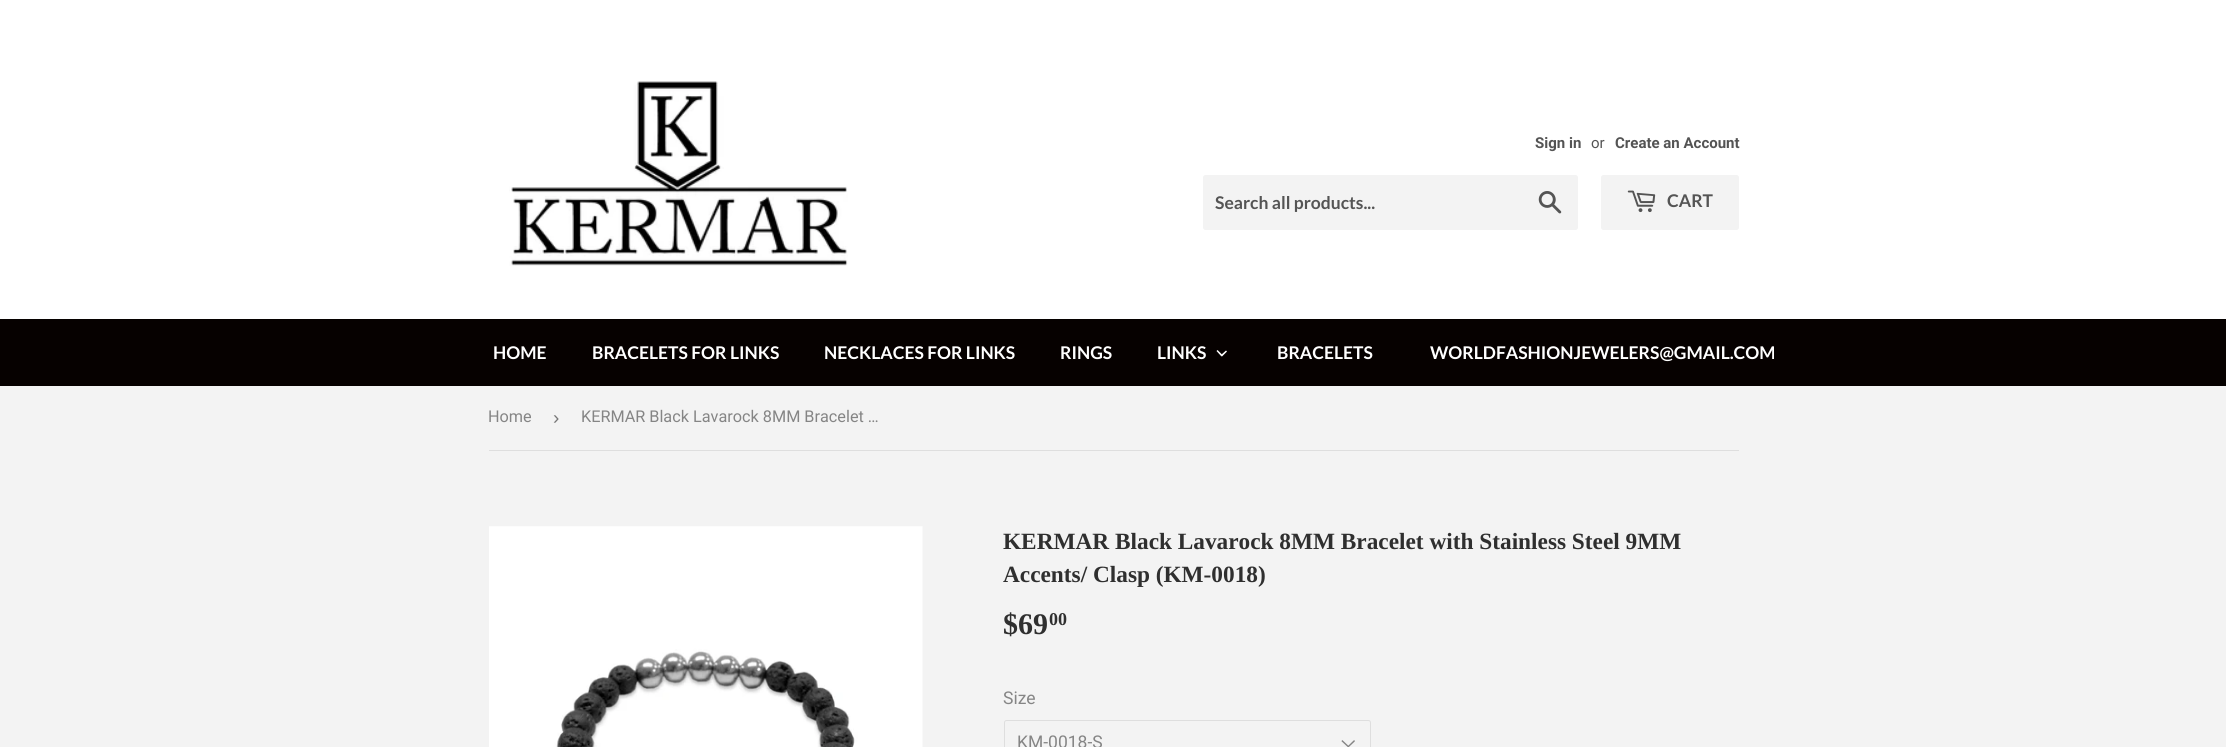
#include <cairo/cairo.h>
#include <math.h>
#include <stddef.h>


static void rounded_rect(cairo_t *cr, double x, double y, double w, double h, double r) {
  cairo_new_sub_path(cr);
  cairo_arc(cr, x + w - r, y + h - r, r, 0, M_PI / 2);
  cairo_arc(cr, x + r, y + h - r, r, M_PI / 2, M_PI);
  cairo_arc(cr, x + r, y + r, r, M_PI, 1.5 * M_PI);
  cairo_arc(cr, x + w - r, y + r, r, 1.5 * M_PI, 2 * M_PI);
  cairo_close_path(cr);
}

static void draw_image(cairo_t *cr, const char *path, double x, double y, double w, double h) {
  cairo_surface_t *image = cairo_image_surface_create_from_png(path);
  cairo_save(cr);
  cairo_set_source_surface(cr, image, x, y);
  cairo_rectangle(cr, x, y, w, h);
  cairo_fill(cr);
  cairo_restore(cr);
  cairo_surface_destroy(image);
}

static void draw(cairo_t *cr) {
  cairo_set_source_rgb(cr, 243 / 255.0, 243 / 255.0, 243 / 255.0);
  cairo_paint(cr);
  cairo_set_source_rgb(cr, 1, 1, 1);
  cairo_rectangle(cr, 0, 0, 2226, 319);
  cairo_fill(cr);
  draw_image(cr, "images/1.png", 509, 81, 339, 185);
  cairo_set_source_rgb(cr, 243 / 255.0, 243 / 255.0, 243 / 255.0);
  rounded_rect(cr, 1203, 175, 375, 55, 2.5);
  cairo_fill(cr);
  draw_image(cr, "images/2.png", 1538, 191, 24, 23);
  rounded_rect(cr, 1601, 175, 138, 55, 2.5);
  cairo_fill(cr);
  draw_image(cr, "images/3.png", 1627, 190, 29, 23);
  cairo_set_source_rgb(cr, 6 / 255.0, 1 / 255.0, 0);
  cairo_rectangle(cr, 0, 319, 2226, 67);
  cairo_fill(cr);
  cairo_set_source_rgb(cr, 1, 1, 1);
  cairo_new_path(cr);
  cairo_move_to(cr, 1226, 350.5);
  cairo_line_to(cr, 1227, 351.5);
  cairo_line_to(cr, 1222, 356.5);
  cairo_line_to(cr, 1221, 355);
  cairo_close_path(cr);
  cairo_fill(cr);
  cairo_new_path(cr);
  cairo_move_to(cr, 1217.5, 350);
  cairo_line_to(cr, 1222.5, 355);
  cairo_line_to(cr, 1221.5, 356.5);
  cairo_line_to(cr, 1216.5, 351);
  cairo_close_path(cr);
  cairo_fill(cr);
  cairo_set_source_rgb(cr, 222 / 255.0, 222 / 255.0, 222 / 255.0);
  cairo_rectangle(cr, 489, 450, 1250, 1);
  cairo_fill(cr);
  draw_image(cr, "images/4.png", 489, 526, 434, 221);
  draw_image(cr, "images/5.png", 1341, 740, 14, 7);
  rounded_rect(cr, 1004.5, 720.5, 366, 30, 2);
  cairo_set_line_width(cr, 1);
  cairo_stroke(cr);
  cairo_select_font_face(cr, "Roboto", CAIRO_FONT_SLANT_NORMAL, CAIRO_FONT_WEIGHT_BOLD);
  cairo_set_font_size(cr, 15);
  cairo_set_source_rgb(cr, 84 / 255.0, 84 / 255.0, 84 / 255.0);
  cairo_move_to(cr, 1535, 148);
  cairo_show_text(cr, "Sign in");
  cairo_select_font_face(cr, "Roboto", CAIRO_FONT_SLANT_NORMAL, CAIRO_FONT_WEIGHT_NORMAL);
  cairo_move_to(cr, 1591, 148);
  cairo_show_text(cr, "or");
  cairo_select_font_face(cr, "Roboto", CAIRO_FONT_SLANT_NORMAL, CAIRO_FONT_WEIGHT_BOLD);
  cairo_move_to(cr, 1615, 148);
  cairo_show_text(cr, "Create an Account");
  cairo_select_font_face(cr, "Lato", CAIRO_FONT_SLANT_NORMAL, CAIRO_FONT_WEIGHT_BOLD);
  cairo_set_font_size(cr, 17.5);
  cairo_move_to(cr, 1215, 209);
  cairo_show_text(cr, "Search all products...");
  cairo_move_to(cr, 1667, 207);
  cairo_show_text(cr, "CART");
  cairo_set_source_rgb(cr, 1, 1, 1);
  cairo_move_to(cr, 493, 359);
  cairo_show_text(cr, "HOME");
  cairo_move_to(cr, 592, 359);
  cairo_show_text(cr, "BRACELETS FOR LINKS");
  cairo_move_to(cr, 824, 359);
  cairo_show_text(cr, "NECKLACES FOR LINKS");
  cairo_move_to(cr, 1060, 359);
  cairo_show_text(cr, "RINGS");
  cairo_move_to(cr, 1157, 359);
  cairo_show_text(cr, "LINKS");
  cairo_move_to(cr, 1277, 359);
  cairo_show_text(cr, "BRACELETS");
  cairo_move_to(cr, 1430, 359);
  cairo_show_text(cr, "WORLDFASHIONJEWELERS@GMAIL.COM");
  cairo_select_font_face(cr, "Roboto", CAIRO_FONT_SLANT_NORMAL, CAIRO_FONT_WEIGHT_NORMAL);
  cairo_set_font_size(cr, 16.25);
  cairo_set_source_rgb(cr, 133 / 255.0, 133 / 255.0, 133 / 255.0);
  cairo_move_to(cr, 488, 422);
  cairo_show_text(cr, "Home");
  cairo_select_font_face(cr, "Liberation Sans", CAIRO_FONT_SLANT_NORMAL, CAIRO_FONT_WEIGHT_NORMAL);
  cairo_set_font_size(cr, 19);
  cairo_set_source_rgb(cr, 118 / 255.0, 118 / 255.0, 118 / 255.0);
  cairo_move_to(cr, 553, 424);
  cairo_show_text(cr, "›");
  cairo_select_font_face(cr, "Roboto", CAIRO_FONT_SLANT_NORMAL, CAIRO_FONT_WEIGHT_NORMAL);
  cairo_set_font_size(cr, 16.25);
  cairo_set_source_rgb(cr, 133 / 255.0, 133 / 255.0, 133 / 255.0);
  cairo_move_to(cr, 581, 422);
  cairo_show_text(cr, "KERMAR Black Lavarock 8MM Bracelet …");
  cairo_select_font_face(cr, "Liberation Serif", CAIRO_FONT_SLANT_NORMAL, CAIRO_FONT_WEIGHT_BOLD);
  cairo_set_font_size(cr, 23.3);
  cairo_set_source_rgb(cr, 47 / 255.0, 47 / 255.0, 47 / 255.0);
  cairo_move_to(cr, 1003, 549);
  cairo_show_text(cr, "KERMAR Black Lavarock 8MM Bracelet with Stainless Steel 9MM");
  cairo_move_to(cr, 1003, 582);
  cairo_show_text(cr, "Accents/ Clasp (KM-0018)");
  cairo_set_font_size(cr, 30);
  cairo_move_to(cr, 1003, 634);
  cairo_show_text(cr, "$69");
  cairo_set_font_size(cr, 18);
  cairo_move_to(cr, 1049, 625);
  cairo_show_text(cr, "00");
  cairo_select_font_face(cr, "Roboto", CAIRO_FONT_SLANT_NORMAL, CAIRO_FONT_WEIGHT_NORMAL);
  cairo_set_font_size(cr, 17.5);
  cairo_set_source_rgb(cr, 133 / 255.0, 133 / 255.0, 133 / 255.0);
  cairo_move_to(cr, 1003, 704);
  cairo_show_text(cr, "Size");
  cairo_move_to(cr, 1017, 748);
  cairo_show_text(cr, "KM-0018-S");
}

int main(void) {
  cairo_surface_t *surface = cairo_image_surface_create(CAIRO_FORMAT_RGB24, 2226, 747);
  cairo_t *cr = cairo_create(surface);
  cairo_font_options_t *options = cairo_font_options_create();
  cairo_font_options_set_hint_metrics(options, CAIRO_HINT_METRICS_OFF);
  cairo_font_options_set_hint_style(options, CAIRO_HINT_STYLE_NONE);
  cairo_set_font_options(cr, options);
  cairo_set_miter_limit(cr, 4);
  draw(cr);
  cairo_surface_write_to_png(surface, "out.png");
  cairo_font_options_destroy(options);
  cairo_destroy(cr);
  cairo_surface_destroy(surface);
  return 0;
}
